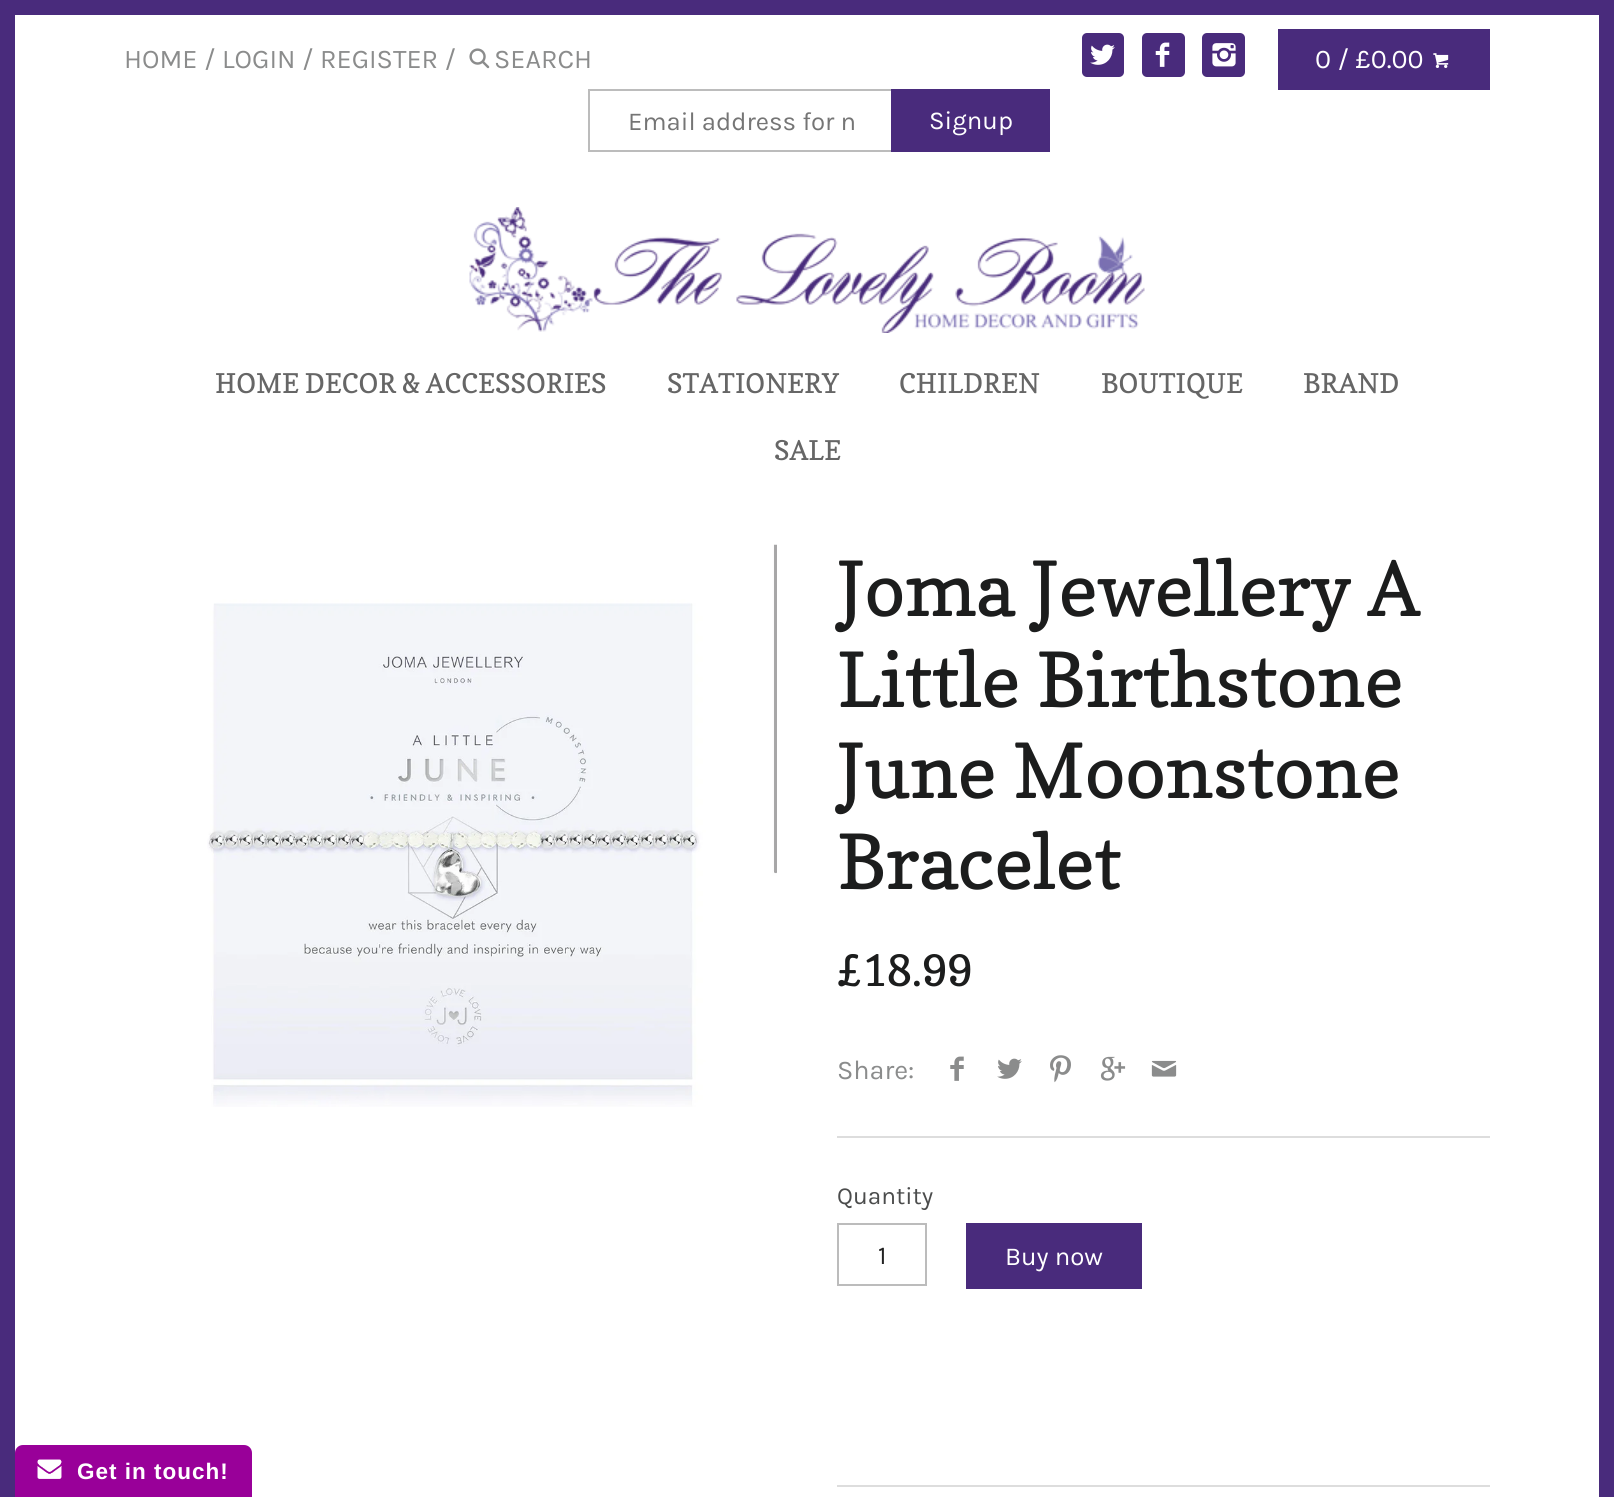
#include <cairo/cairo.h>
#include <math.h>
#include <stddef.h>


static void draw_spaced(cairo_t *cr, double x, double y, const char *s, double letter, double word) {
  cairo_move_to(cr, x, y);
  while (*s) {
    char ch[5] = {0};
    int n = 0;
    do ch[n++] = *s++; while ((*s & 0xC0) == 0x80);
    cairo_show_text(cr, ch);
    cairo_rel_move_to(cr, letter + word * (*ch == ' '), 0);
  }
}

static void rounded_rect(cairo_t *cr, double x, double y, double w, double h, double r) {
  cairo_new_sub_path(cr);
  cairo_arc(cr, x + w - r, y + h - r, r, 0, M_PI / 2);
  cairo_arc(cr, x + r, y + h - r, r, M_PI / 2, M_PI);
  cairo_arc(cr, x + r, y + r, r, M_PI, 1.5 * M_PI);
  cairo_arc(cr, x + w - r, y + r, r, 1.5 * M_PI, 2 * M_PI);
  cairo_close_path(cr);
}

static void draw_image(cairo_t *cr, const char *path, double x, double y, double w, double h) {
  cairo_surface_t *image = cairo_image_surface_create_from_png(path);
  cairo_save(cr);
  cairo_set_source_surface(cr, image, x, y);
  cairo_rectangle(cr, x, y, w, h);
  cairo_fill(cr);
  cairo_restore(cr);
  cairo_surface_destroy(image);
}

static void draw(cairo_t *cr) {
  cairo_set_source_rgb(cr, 1, 1, 1);
  cairo_paint(cr);
  cairo_rectangle(cr, 7.5, 7.5, 1599, 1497);
  cairo_set_source_rgb(cr, 73 / 255.0, 43 / 255.0, 124 / 255.0);
  cairo_set_line_width(cr, 15);
  cairo_stroke(cr);
  draw_image(cr, "images/1.png", 469, 48, 21, 21);
  rounded_rect(cr, 1082, 33, 42, 44, 5);
  cairo_fill(cr);
  draw_image(cr, "images/2.png", 1090, 44, 25, 21);
  rounded_rect(cr, 1142, 33, 43, 44, 5);
  cairo_fill(cr);
  draw_image(cr, "images/3.png", 1155, 42, 15, 25);
  rounded_rect(cr, 1202, 33, 43, 44, 5);
  cairo_fill(cr);
  draw_image(cr, "images/4.png", 1212, 43, 24, 24);
  cairo_rectangle(cr, 1278, 29, 212, 61);
  cairo_fill(cr);
  draw_image(cr, "images/5.png", 1433, 53, 16, 15);
  cairo_rectangle(cr, 589, 90, 459, 61);
  cairo_set_source_rgb(cr, 188 / 255.0, 188 / 255.0, 188 / 255.0);
  cairo_set_line_width(cr, 2);
  cairo_stroke(cr);
  cairo_set_source_rgb(cr, 73 / 255.0, 43 / 255.0, 124 / 255.0);
  cairo_rectangle(cr, 891, 89, 159, 63);
  cairo_fill(cr);
  draw_image(cr, "images/6.png", 469, 207, 676, 126);
  draw_image(cr, "images/7.png", 207, 544, 570, 563);
  cairo_set_source_rgb(cr, 221 / 255.0, 221 / 255.0, 221 / 255.0);
  cairo_rectangle(cr, 837, 1136, 653, 2);
  cairo_fill(cr);
  draw_image(cr, "images/8.png", 950, 1056, 14, 25);
  draw_image(cr, "images/9.png", 997, 1058, 25, 21);
  draw_image(cr, "images/10.png", 1050, 1055, 21, 28);
  draw_image(cr, "images/11.png", 1100, 1056, 26, 25);
  draw_image(cr, "images/12.png", 1151, 1060, 26, 17);
  cairo_rectangle(cr, 837, 1485, 653, 2);
  cairo_fill(cr);
  cairo_rectangle(cr, 838, 1224, 88, 61);
  cairo_set_source_rgb(cr, 188 / 255.0, 188 / 255.0, 188 / 255.0);
  cairo_stroke(cr);
  cairo_set_source_rgb(cr, 73 / 255.0, 43 / 255.0, 124 / 255.0);
  cairo_rectangle(cr, 966, 1223, 176, 66);
  cairo_fill(cr);
  cairo_set_source_rgb(cr, 153 / 255.0, 0, 153 / 255.0);
  cairo_new_path(cr);
  cairo_move_to(cr, 23, 1445);
  cairo_line_to(cr, 244, 1445);
  cairo_curve_to(cr, 248.5, 1445, 252, 1448.5, 252, 1453);
  cairo_line_to(cr, 252, 1497);
  cairo_line_to(cr, 15, 1497);
  cairo_line_to(cr, 15, 1453);
  cairo_curve_to(cr, 15, 1448.5, 18.5, 1445, 23, 1445);
  cairo_close_path(cr);
  cairo_fill(cr);
  draw_image(cr, "images/13.png", 37, 1459, 25, 20);
  cairo_select_font_face(cr, "Karla", CAIRO_FONT_SLANT_NORMAL, CAIRO_FONT_WEIGHT_NORMAL);
  cairo_set_font_size(cr, 27);
  cairo_set_source_rgb(cr, 139 / 255.0, 140 / 255.0, 140 / 255.0);
  cairo_move_to(cr, 124, 68);
  cairo_show_text(cr, "HOME / LOGIN / REGISTER /");
  cairo_move_to(cr, 494, 68);
  cairo_show_text(cr, "SEARCH");
  cairo_set_source_rgb(cr, 1, 1, 1);
  cairo_move_to(cr, 1315, 68);
  cairo_show_text(cr, "0 / £0.00");
  cairo_set_font_size(cr, 25.75);
  cairo_set_source_rgb(cr, 117 / 255.0, 117 / 255.0, 117 / 255.0);
  cairo_move_to(cr, 628, 130);
  cairo_show_text(cr, "Email address for n");
  cairo_set_source_rgb(cr, 1, 1, 1);
  cairo_move_to(cr, 929, 129);
  cairo_show_text(cr, "Signup");
  cairo_select_font_face(cr, "Copse", CAIRO_FONT_SLANT_NORMAL, CAIRO_FONT_WEIGHT_NORMAL);
  cairo_set_font_size(cr, 27);
  cairo_set_source_rgb(cr, 102 / 255.0, 102 / 255.0, 102 / 255.0);
  cairo_move_to(cr, 215, 393);
  cairo_show_text(cr, "HOME DECOR & ACCESSORIES");
  cairo_move_to(cr, 667, 393);
  cairo_show_text(cr, "STATIONERY");
  cairo_move_to(cr, 899, 393);
  cairo_show_text(cr, "CHILDREN");
  cairo_move_to(cr, 1101, 393);
  cairo_show_text(cr, "BOUTIQUE");
  cairo_move_to(cr, 1303, 393);
  cairo_show_text(cr, "BRAND");
  cairo_move_to(cr, 774, 460);
  cairo_show_text(cr, "SALE");
  cairo_set_font_size(cr, 75.5);
  cairo_set_source_rgb(cr, 28 / 255.0, 29 / 255.0, 29 / 255.0);
  cairo_move_to(cr, 837, 616);
  cairo_show_text(cr, "Joma Jewellery A");
  cairo_move_to(cr, 837, 707);
  cairo_show_text(cr, "Little Birthstone");
  cairo_move_to(cr, 837, 798);
  cairo_show_text(cr, "June Moonstone");
  cairo_move_to(cr, 837, 889);
  cairo_show_text(cr, "Bracelet");
  cairo_set_font_size(cr, 43);
  cairo_move_to(cr, 837, 986);
  cairo_show_text(cr, "£18.99");
  cairo_select_font_face(cr, "Karla", CAIRO_FONT_SLANT_NORMAL, CAIRO_FONT_WEIGHT_NORMAL);
  cairo_set_font_size(cr, 27);
  cairo_set_source_rgb(cr, 139 / 255.0, 140 / 255.0, 140 / 255.0);
  cairo_move_to(cr, 837, 1079);
  cairo_show_text(cr, "Share:");
  cairo_set_font_size(cr, 24.5);
  cairo_set_source_rgb(cr, 75 / 255.0, 76 / 255.0, 76 / 255.0);
  cairo_move_to(cr, 837, 1204);
  cairo_show_text(cr, "Quantity");
  cairo_set_font_size(cr, 25.75);
  cairo_set_source_rgb(cr, 34 / 255.0, 34 / 255.0, 34 / 255.0);
  cairo_move_to(cr, 878, 1264);
  cairo_show_text(cr, "1");
  cairo_set_source_rgb(cr, 1, 1, 1);
  cairo_move_to(cr, 1005, 1265);
  cairo_show_text(cr, "Buy now");
  cairo_select_font_face(cr, "Liberation Sans", CAIRO_FONT_SLANT_NORMAL, CAIRO_FONT_WEIGHT_BOLD);
  cairo_set_font_size(cr, 22.5);
  draw_spaced(cr, 77, 1479, "Get in touch!", 1, 0);
}

int main(void) {
  cairo_surface_t *surface = cairo_image_surface_create(CAIRO_FORMAT_RGB24, 1614, 1497);
  cairo_t *cr = cairo_create(surface);
  cairo_font_options_t *options = cairo_font_options_create();
  cairo_font_options_set_hint_metrics(options, CAIRO_HINT_METRICS_OFF);
  cairo_font_options_set_hint_style(options, CAIRO_HINT_STYLE_NONE);
  cairo_set_font_options(cr, options);
  cairo_set_miter_limit(cr, 4);
  draw(cr);
  cairo_surface_write_to_png(surface, "out.png");
  cairo_font_options_destroy(options);
  cairo_destroy(cr);
  cairo_surface_destroy(surface);
  return 0;
}
